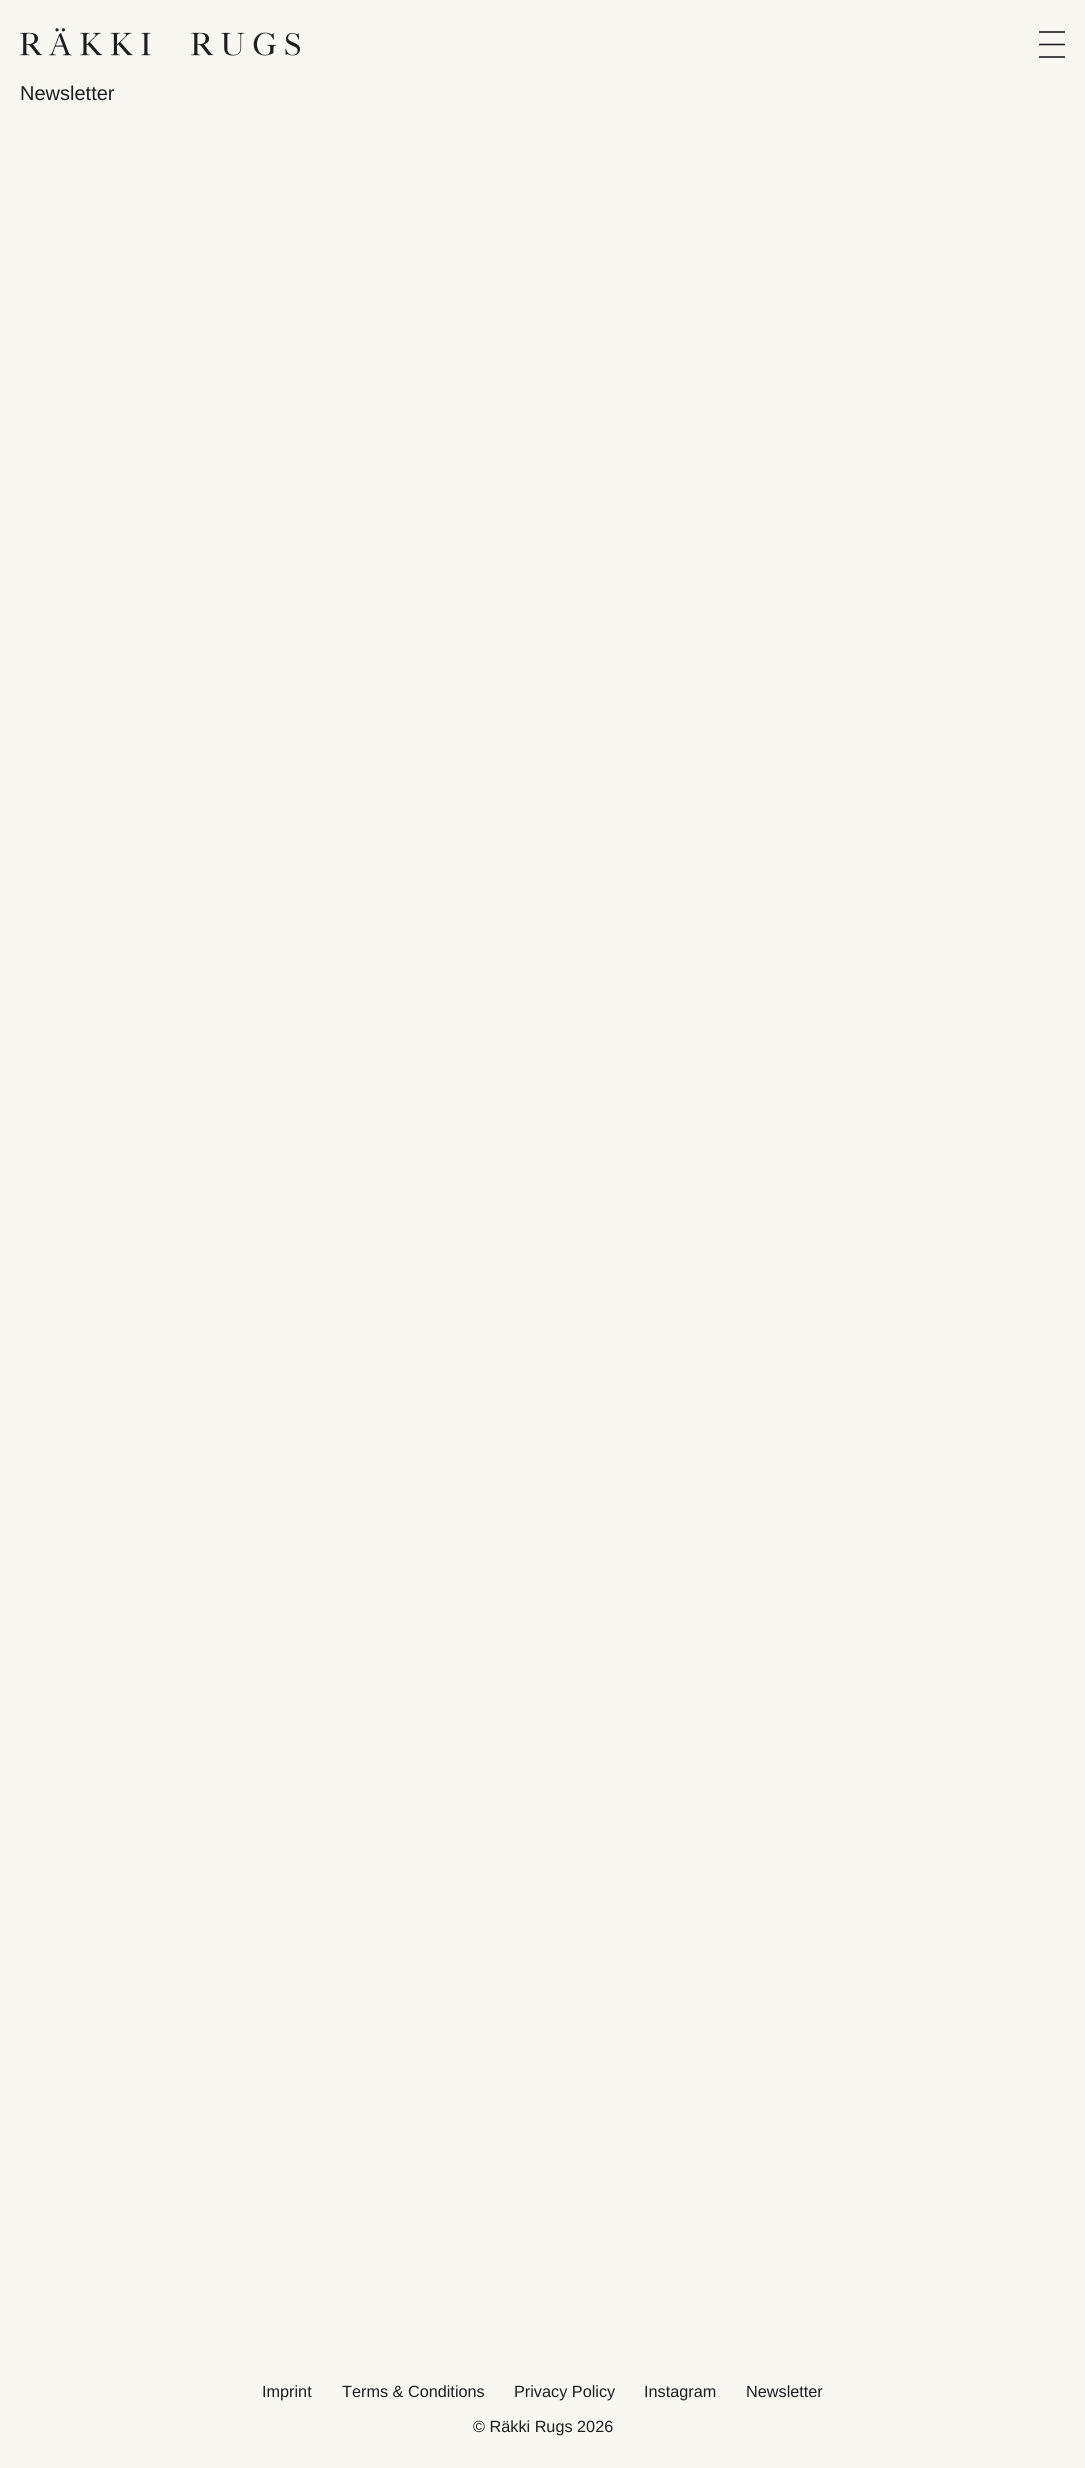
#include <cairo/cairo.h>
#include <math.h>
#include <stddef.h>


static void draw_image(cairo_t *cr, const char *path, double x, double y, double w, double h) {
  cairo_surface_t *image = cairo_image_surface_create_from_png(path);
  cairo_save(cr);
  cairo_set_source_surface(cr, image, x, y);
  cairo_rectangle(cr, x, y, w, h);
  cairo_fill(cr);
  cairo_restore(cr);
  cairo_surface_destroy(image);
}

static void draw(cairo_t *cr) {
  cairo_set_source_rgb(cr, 248 / 255.0, 247 / 255.0, 241 / 255.0);
  cairo_paint(cr);
  draw_image(cr, "images/1.png", 20, 28, 280, 28);
  cairo_set_source_rgb(cr, 73 / 255.0, 73 / 255.0, 71 / 255.0);
  cairo_rectangle(cr, 1039, 31, 26, 2);
  cairo_fill(cr);
  cairo_new_path(cr);
  cairo_move_to(cr, 1039, 44.5);
  cairo_line_to(cr, 1065, 44.5);
  cairo_set_source_rgb(cr, 29 / 255.0, 29 / 255.0, 29 / 255.0);
  cairo_set_line_width(cr, 1.6);
  cairo_stroke(cr);
  cairo_set_source_rgb(cr, 73 / 255.0, 73 / 255.0, 71 / 255.0);
  cairo_rectangle(cr, 1039, 56, 26, 2);
  cairo_fill(cr);
  cairo_select_font_face(cr, "Liberation Sans", CAIRO_FONT_SLANT_NORMAL, CAIRO_FONT_WEIGHT_NORMAL);
  cairo_set_font_size(cr, 20);
  cairo_set_source_rgb(cr, 29 / 255.0, 29 / 255.0, 29 / 255.0);
  cairo_move_to(cr, 20, 100);
  cairo_show_text(cr, "Newsletter");
  cairo_set_font_size(cr, 16.25);
  cairo_move_to(cr, 262, 2397);
  cairo_show_text(cr, "Imprint");
  cairo_move_to(cr, 342, 2397);
  cairo_show_text(cr, "Terms & Conditions");
  cairo_move_to(cr, 514, 2397);
  cairo_show_text(cr, "Privacy Policy");
  cairo_move_to(cr, 644, 2397);
  cairo_show_text(cr, "Instagram");
  cairo_move_to(cr, 746, 2397);
  cairo_show_text(cr, "Newsletter");
  cairo_move_to(cr, 473, 2432);
  cairo_show_text(cr, "© Räkki Rugs 2026");
}

int main(void) {
  cairo_surface_t *surface = cairo_image_surface_create(CAIRO_FORMAT_RGB24, 1085, 2468);
  cairo_t *cr = cairo_create(surface);
  cairo_font_options_t *options = cairo_font_options_create();
  cairo_font_options_set_hint_metrics(options, CAIRO_HINT_METRICS_OFF);
  cairo_font_options_set_hint_style(options, CAIRO_HINT_STYLE_NONE);
  cairo_set_font_options(cr, options);
  cairo_set_miter_limit(cr, 4);
  draw(cr);
  cairo_surface_write_to_png(surface, "out.png");
  cairo_font_options_destroy(options);
  cairo_destroy(cr);
  cairo_surface_destroy(surface);
  return 0;
}
